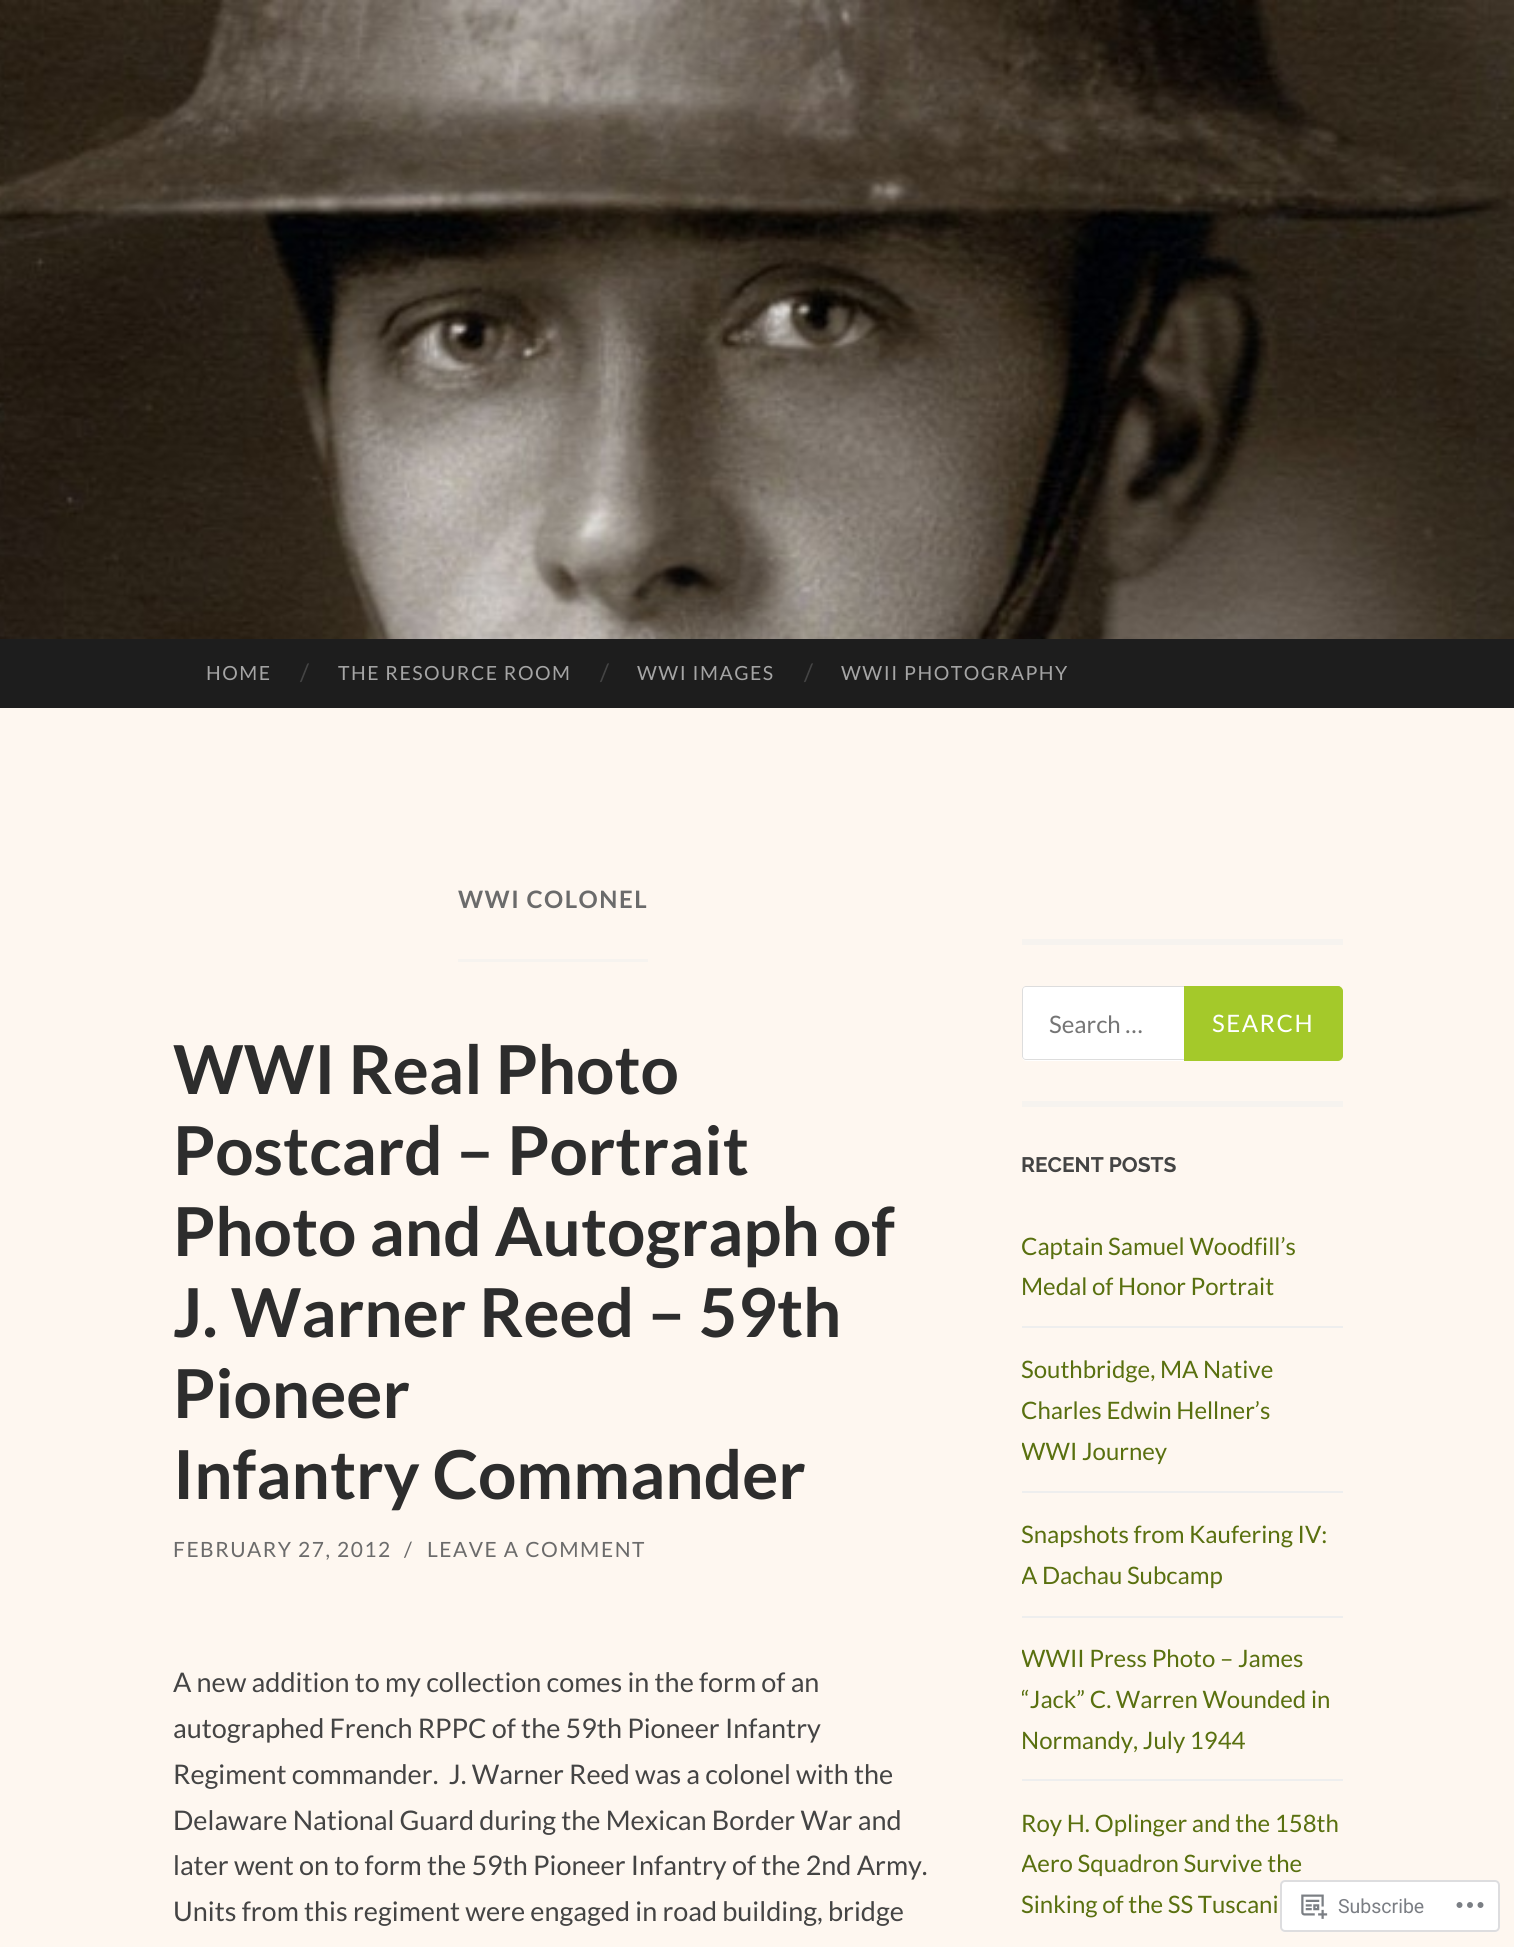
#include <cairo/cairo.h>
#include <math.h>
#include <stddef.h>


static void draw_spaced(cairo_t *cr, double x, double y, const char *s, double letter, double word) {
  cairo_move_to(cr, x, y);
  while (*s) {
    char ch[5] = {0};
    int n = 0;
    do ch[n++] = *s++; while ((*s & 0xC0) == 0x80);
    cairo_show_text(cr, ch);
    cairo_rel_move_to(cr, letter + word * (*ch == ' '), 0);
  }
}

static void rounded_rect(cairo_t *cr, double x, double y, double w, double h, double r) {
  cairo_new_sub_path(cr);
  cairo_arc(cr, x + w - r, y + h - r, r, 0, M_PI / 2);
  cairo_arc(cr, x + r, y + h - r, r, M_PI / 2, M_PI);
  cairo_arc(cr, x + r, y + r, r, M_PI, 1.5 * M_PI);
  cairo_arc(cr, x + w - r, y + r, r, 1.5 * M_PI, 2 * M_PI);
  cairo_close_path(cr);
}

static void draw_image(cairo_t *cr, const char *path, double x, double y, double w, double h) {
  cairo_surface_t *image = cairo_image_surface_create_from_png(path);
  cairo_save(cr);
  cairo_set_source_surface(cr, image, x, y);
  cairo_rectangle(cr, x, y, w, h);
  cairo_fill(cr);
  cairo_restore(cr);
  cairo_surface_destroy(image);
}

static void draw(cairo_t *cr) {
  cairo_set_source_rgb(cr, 254 / 255.0, 247 / 255.0, 240 / 255.0);
  cairo_paint(cr);
  draw_image(cr, "images/1.png", 0, 0, 1514, 639);
  cairo_set_source_rgb(cr, 29 / 255.0, 29 / 255.0, 29 / 255.0);
  cairo_rectangle(cr, 0, 639, 1514, 69);
  cairo_fill(cr);
  cairo_set_source_rgb(cr, 246 / 255.0, 243 / 255.0, 239 / 255.0);
  cairo_rectangle(cr, 458, 959, 190, 3);
  cairo_fill(cr);
  cairo_rectangle(cr, 1022, 939, 321, 6);
  cairo_fill(cr);
  cairo_rectangle(cr, 1022, 1101, 321, 6);
  cairo_fill(cr);
  cairo_set_source_rgb(cr, 1, 1, 1);
  cairo_new_path(cr);
  cairo_move_to(cr, 1027, 986);
  cairo_line_to(cr, 1340, 986);
  cairo_line_to(cr, 1340, 1061);
  cairo_line_to(cr, 1027, 1061);
  cairo_curve_to(cr, 1024, 1061, 1022, 1059, 1022, 1056);
  cairo_line_to(cr, 1022, 991);
  cairo_curve_to(cr, 1022, 988, 1024, 986, 1027, 986);
  cairo_close_path(cr);
  cairo_fill(cr);
  cairo_set_source_rgb(cr, 221 / 255.0, 221 / 255.0, 221 / 255.0);
  cairo_set_fill_rule(cr, CAIRO_FILL_RULE_EVEN_ODD);
  cairo_new_path(cr);
  cairo_move_to(cr, 1026, 986);
  cairo_line_to(cr, 1340, 986);
  cairo_line_to(cr, 1340, 1060);
  cairo_line_to(cr, 1026, 1060);
  cairo_curve_to(cr, 1024, 1060, 1022, 1058, 1022, 1056);
  cairo_line_to(cr, 1022, 990);
  cairo_curve_to(cr, 1022, 988, 1024, 986, 1026, 986);
  cairo_close_path(cr);
  cairo_move_to(cr, 1026, 987);
  cairo_line_to(cr, 1340, 987);
  cairo_line_to(cr, 1340, 1059);
  cairo_line_to(cr, 1026, 1059);
  cairo_curve_to(cr, 1024, 1059, 1023, 1058, 1023, 1056);
  cairo_line_to(cr, 1023, 990);
  cairo_curve_to(cr, 1023, 988, 1024, 987, 1026, 987);
  cairo_close_path(cr);
  cairo_fill(cr);
  cairo_set_source_rgb(cr, 164 / 255.0, 201 / 255.0, 42 / 255.0);
  cairo_new_path(cr);
  cairo_move_to(cr, 1185, 987);
  cairo_line_to(cr, 1338, 987);
  cairo_curve_to(cr, 1340, 987, 1342, 989, 1342, 991);
  cairo_line_to(cr, 1342, 1056);
  cairo_curve_to(cr, 1342, 1058, 1340, 1060, 1338, 1060);
  cairo_line_to(cr, 1185, 1060);
  cairo_close_path(cr);
  cairo_fill_preserve(cr);
  cairo_stroke(cr);
  cairo_set_source_rgb(cr, 238 / 255.0, 238 / 255.0, 238 / 255.0);
  cairo_rectangle(cr, 1022, 1326, 321, 2);
  cairo_fill(cr);
  cairo_rectangle(cr, 1022, 1491, 321, 2);
  cairo_fill(cr);
  cairo_rectangle(cr, 1022, 1616, 321, 2);
  cairo_fill(cr);
  cairo_rectangle(cr, 1022, 1779, 321, 2);
  cairo_fill(cr);
  cairo_set_source_rgba(cr, 1, 1, 1, 0.98);
  rounded_rect(cr, 1280, 1880, 220, 52, 5);
  cairo_fill(cr);
  rounded_rect(cr, 1281, 1881, 218, 50, 4);
  cairo_set_source_rgba(cr, 220 / 255.0, 220 / 255.0, 222 / 255.0, 0.98);
  cairo_stroke(cr);
  draw_image(cr, "images/2.png", 1301, 1894, 27, 25);
  draw_image(cr, "images/3.png", 1456, 1902, 28, 6);
  cairo_select_font_face(cr, "Lato", CAIRO_FONT_SLANT_NORMAL, CAIRO_FONT_WEIGHT_NORMAL);
  cairo_set_font_size(cr, 19.5);
  cairo_set_source_rgb(cr, 165 / 255.0, 165 / 255.0, 165 / 255.0);
  draw_spaced(cr, 206, 680, "HOME", 1.5, 0);
  cairo_set_font_size(cr, 24);
  cairo_set_source_rgb(cr, 68 / 255.0, 68 / 255.0, 68 / 255.0);
  cairo_move_to(cr, 300, 681);
  cairo_show_text(cr, "/");
  cairo_set_font_size(cr, 19.5);
  cairo_set_source_rgb(cr, 165 / 255.0, 165 / 255.0, 165 / 255.0);
  draw_spaced(cr, 338, 680, "THE RESOURCE ROOM", 1.5, 0);
  cairo_set_font_size(cr, 24);
  cairo_set_source_rgb(cr, 68 / 255.0, 68 / 255.0, 68 / 255.0);
  cairo_move_to(cr, 600, 681);
  cairo_show_text(cr, "/");
  cairo_set_font_size(cr, 19.5);
  cairo_set_source_rgb(cr, 165 / 255.0, 165 / 255.0, 165 / 255.0);
  draw_spaced(cr, 637, 680, "WWI IMAGES", 1.5, 0);
  cairo_set_font_size(cr, 24);
  cairo_set_source_rgb(cr, 68 / 255.0, 68 / 255.0, 68 / 255.0);
  cairo_move_to(cr, 804, 681);
  cairo_show_text(cr, "/");
  cairo_set_font_size(cr, 19.5);
  cairo_set_source_rgb(cr, 165 / 255.0, 165 / 255.0, 165 / 255.0);
  draw_spaced(cr, 841, 680, "WWII PHOTOGRAPHY", 1.5, 0);
  cairo_select_font_face(cr, "Lato", CAIRO_FONT_SLANT_NORMAL, CAIRO_FONT_WEIGHT_BOLD);
  cairo_set_font_size(cr, 24);
  cairo_set_source_rgb(cr, 107 / 255.0, 107 / 255.0, 107 / 255.0);
  draw_spaced(cr, 458, 908, "WWI COLONEL", 1.5, 0);
  cairo_set_font_size(cr, 67.5);
  cairo_set_source_rgb(cr, 45 / 255.0, 45 / 255.0, 45 / 255.0);
  cairo_move_to(cr, 173, 1094);
  cairo_show_text(cr, "WWI Real Photo");
  cairo_move_to(cr, 173, 1175);
  cairo_show_text(cr, "Postcard – Portrait");
  cairo_move_to(cr, 173, 1256);
  cairo_show_text(cr, "Photo and Autograph of");
  cairo_move_to(cr, 173, 1337);
  cairo_show_text(cr, "J. Warner Reed – 59th");
  cairo_move_to(cr, 173, 1418);
  cairo_show_text(cr, "Pioneer");
  cairo_move_to(cr, 173, 1499);
  cairo_show_text(cr, "Infantry Commander");
  cairo_select_font_face(cr, "Lato", CAIRO_FONT_SLANT_NORMAL, CAIRO_FONT_WEIGHT_NORMAL);
  cairo_set_font_size(cr, 21);
  cairo_set_source_rgb(cr, 107 / 255.0, 107 / 255.0, 107 / 255.0);
  draw_spaced(cr, 173, 1557, "FEBRUARY 27, 2012", 1.5, 0);
  draw_spaced(cr, 404, 1557, "/", 1.5, 0);
  draw_spaced(cr, 427, 1557, "LEAVE A COMMENT", 1.5, 0);
  cairo_set_font_size(cr, 27);
  cairo_set_source_rgb(cr, 68 / 255.0, 68 / 255.0, 68 / 255.0);
  cairo_move_to(cr, 173, 1692);
  cairo_show_text(cr, "A new addition to my collection comes in the form of an");
  cairo_move_to(cr, 173, 1738);
  cairo_show_text(cr, "autographed French RPPC of the 59th Pioneer Infantry");
  cairo_move_to(cr, 173, 1784);
  cairo_show_text(cr, "Regiment commander.  J. Warner Reed was a colonel with the");
  cairo_move_to(cr, 173, 1830);
  cairo_show_text(cr, "Delaware National Guard during the Mexican Border War and");
  cairo_move_to(cr, 173, 1875);
  cairo_show_text(cr, "later went on to form the 59th Pioneer Infantry of the 2nd Army.");
  cairo_move_to(cr, 173, 1921);
  cairo_show_text(cr, "Units from this regiment were engaged in road building, bridge");
  cairo_set_font_size(cr, 24);
  cairo_set_source_rgb(cr, 117 / 255.0, 117 / 255.0, 117 / 255.0);
  cairo_move_to(cr, 1049, 1033);
  cairo_show_text(cr, "Search …");
  cairo_set_source_rgb(cr, 1, 1, 1);
  draw_spaced(cr, 1212, 1032, "SEARCH", 1.5, 0);
  cairo_select_font_face(cr, "Raleway", CAIRO_FONT_SLANT_NORMAL, CAIRO_FONT_WEIGHT_BOLD);
  cairo_set_font_size(cr, 21);
  cairo_set_source_rgb(cr, 68 / 255.0, 68 / 255.0, 68 / 255.0);
  cairo_move_to(cr, 1021, 1172);
  cairo_show_text(cr, "RECENT POSTS");
  cairo_save(cr);
  cairo_set_fill_rule(cr, CAIRO_FILL_RULE_WINDING);
  cairo_rectangle(cr, 1022, 858, 321, 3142);
  cairo_clip(cr);
  cairo_select_font_face(cr, "Lato", CAIRO_FONT_SLANT_NORMAL, CAIRO_FONT_WEIGHT_NORMAL);
  cairo_set_font_size(cr, 24);
  cairo_set_source_rgb(cr, 89 / 255.0, 112 / 255.0, 15 / 255.0);
  cairo_move_to(cr, 1021, 1255);
  cairo_show_text(cr, "Captain Samuel Woodfill’s");
  cairo_restore(cr);
  cairo_select_font_face(cr, "Lato", CAIRO_FONT_SLANT_NORMAL, CAIRO_FONT_WEIGHT_NORMAL);
  cairo_set_font_size(cr, 24);
  cairo_set_source_rgb(cr, 89 / 255.0, 112 / 255.0, 15 / 255.0);
  cairo_move_to(cr, 1021, 1295);
  cairo_show_text(cr, "Medal of Honor Portrait");
  cairo_move_to(cr, 1021, 1378);
  cairo_show_text(cr, "Southbridge, MA Native");
  cairo_save(cr);
  cairo_set_fill_rule(cr, CAIRO_FILL_RULE_WINDING);
  cairo_rectangle(cr, 1022, 858, 321, 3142);
  cairo_clip(cr);
  cairo_move_to(cr, 1021, 1419);
  cairo_show_text(cr, "Charles Edwin Hellner’s");
  cairo_move_to(cr, 1021, 1460);
  cairo_show_text(cr, "WWI Journey");
  cairo_restore(cr);
  cairo_move_to(cr, 1021, 1543);
  cairo_show_text(cr, "Snapshots from Kaufering IV:");
  cairo_save(cr);
  cairo_set_fill_rule(cr, CAIRO_FILL_RULE_WINDING);
  cairo_rectangle(cr, 1022, 858, 321, 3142);
  cairo_clip(cr);
  cairo_move_to(cr, 1021, 1584);
  cairo_show_text(cr, "A Dachau Subcamp");
  cairo_move_to(cr, 1021, 1667);
  cairo_show_text(cr, "WWII Press Photo – James");
  cairo_move_to(cr, 1021, 1708);
  cairo_show_text(cr, "“Jack” C. Warren Wounded in");
  cairo_restore(cr);
  cairo_move_to(cr, 1021, 1749);
  cairo_show_text(cr, "Normandy, July 1944");
  cairo_move_to(cr, 1021, 1832);
  cairo_show_text(cr, "Roy H. Oplinger and the 158th");
  cairo_save(cr);
  cairo_set_fill_rule(cr, CAIRO_FILL_RULE_WINDING);
  cairo_rectangle(cr, 1022, 858, 321, 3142);
  cairo_clip(cr);
  cairo_move_to(cr, 1021, 1872);
  cairo_show_text(cr, "Aero Squadron Survive the");
  cairo_restore(cr);
  cairo_move_to(cr, 1021, 1913);
  cairo_show_text(cr, "Sinking of the SS Tuscani");
  cairo_select_font_face(cr, "Roboto", CAIRO_FONT_SLANT_NORMAL, CAIRO_FONT_WEIGHT_NORMAL);
  cairo_set_font_size(cr, 19.5);
  cairo_set_source_rgb(cr, 123 / 255.0, 126 / 255.0, 132 / 255.0);
  cairo_move_to(cr, 1338, 1913);
  cairo_show_text(cr, "Subscribe");
}

int main(void) {
  cairo_surface_t *surface = cairo_image_surface_create(CAIRO_FORMAT_RGB24, 1514, 1947);
  cairo_t *cr = cairo_create(surface);
  cairo_font_options_t *options = cairo_font_options_create();
  cairo_font_options_set_hint_metrics(options, CAIRO_HINT_METRICS_OFF);
  cairo_font_options_set_hint_style(options, CAIRO_HINT_STYLE_NONE);
  cairo_set_font_options(cr, options);
  cairo_set_miter_limit(cr, 4);
  draw(cr);
  cairo_surface_write_to_png(surface, "out.png");
  cairo_font_options_destroy(options);
  cairo_destroy(cr);
  cairo_surface_destroy(surface);
  return 0;
}
